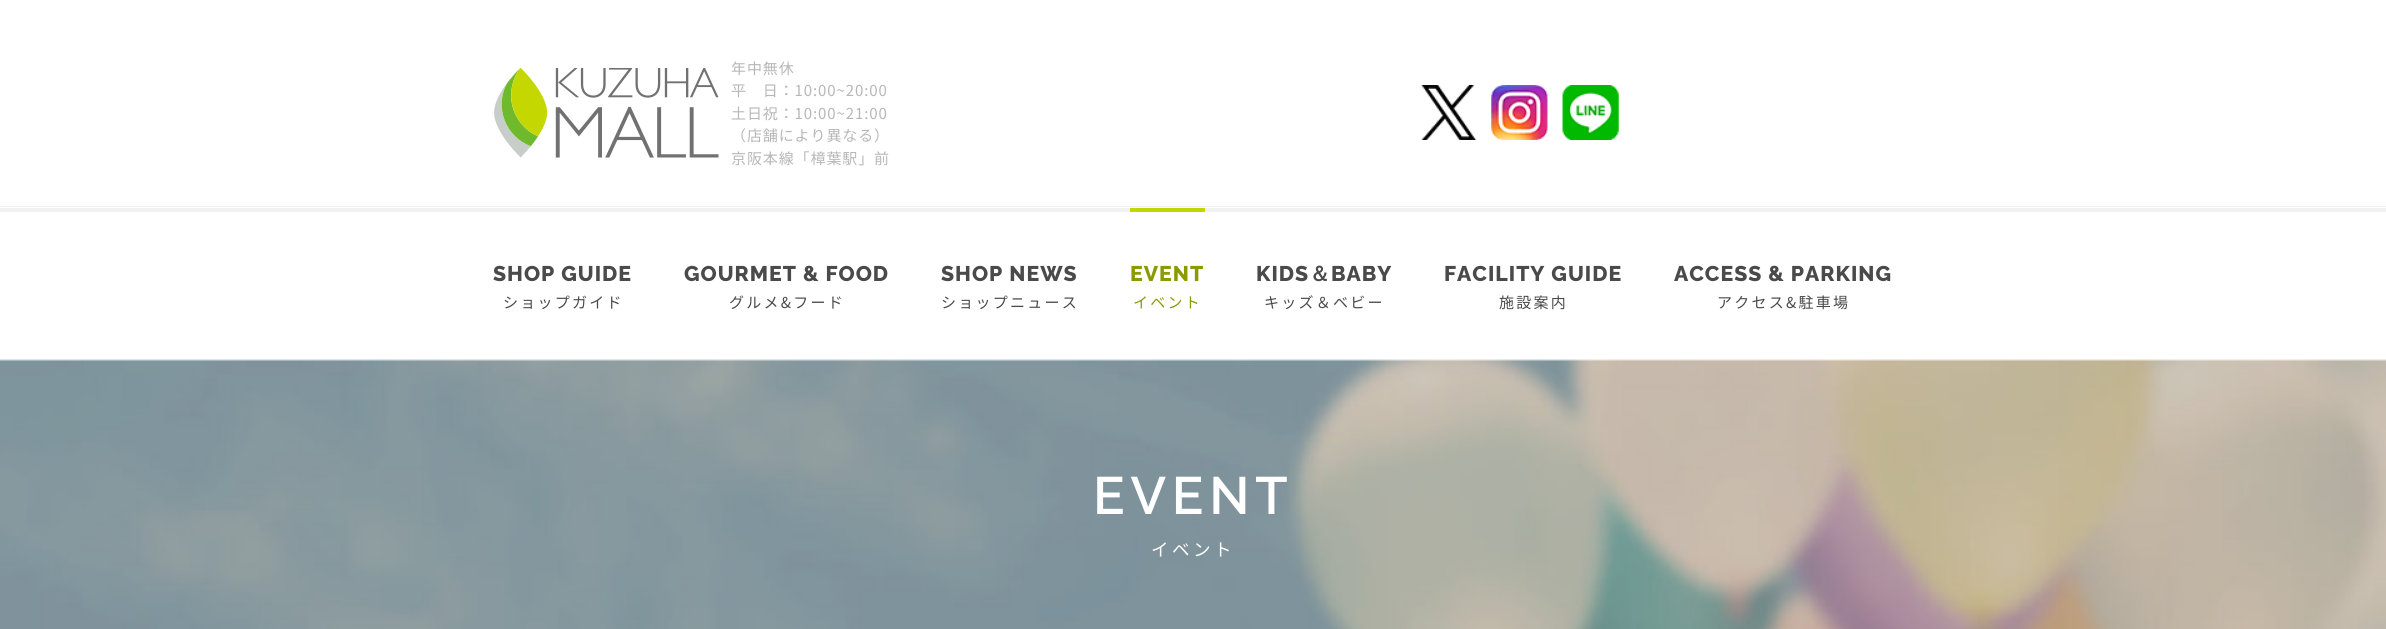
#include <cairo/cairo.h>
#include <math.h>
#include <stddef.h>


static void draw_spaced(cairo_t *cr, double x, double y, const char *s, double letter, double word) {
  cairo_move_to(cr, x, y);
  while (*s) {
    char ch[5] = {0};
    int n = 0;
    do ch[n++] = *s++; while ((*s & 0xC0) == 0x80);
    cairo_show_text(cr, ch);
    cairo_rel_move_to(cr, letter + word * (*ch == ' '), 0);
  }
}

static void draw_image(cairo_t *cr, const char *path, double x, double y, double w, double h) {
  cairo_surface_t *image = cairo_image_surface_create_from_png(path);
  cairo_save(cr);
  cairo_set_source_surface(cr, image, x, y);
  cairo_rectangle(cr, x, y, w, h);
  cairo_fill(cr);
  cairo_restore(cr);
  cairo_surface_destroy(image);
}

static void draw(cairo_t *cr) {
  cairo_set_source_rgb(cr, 1, 1, 1);
  cairo_paint(cr);
  cairo_set_source_rgb(cr, 241 / 255.0, 241 / 255.0, 241 / 255.0);
  cairo_rectangle(cr, 0, 206, 2386, 1);
  cairo_fill(cr);
  draw_image(cr, "images/1.png", 494, 68, 225, 90);
  draw_image(cr, "images/2.png", 1421, 85, 56, 55);
  draw_image(cr, "images/3.png", 1491, 85, 57, 55);
  draw_image(cr, "images/4.png", 1562, 85, 57, 55);
  cairo_rectangle(cr, 0, 208, 2386, 4);
  cairo_fill(cr);
  cairo_set_source_rgb(cr, 192 / 255.0, 215 / 255.0, 0);
  cairo_rectangle(cr, 1130, 208, 75, 4);
  cairo_fill(cr);
  cairo_set_source_rgb(cr, 244 / 255.0, 244 / 255.0, 244 / 255.0);
  cairo_rectangle(cr, 0, 360, 2386, 1);
  cairo_fill(cr);
  draw_image(cr, "images/5.png", 0, 359, 2386, 270);
  cairo_select_font_face(cr, "Noto Sans JP", CAIRO_FONT_SLANT_NORMAL, CAIRO_FONT_WEIGHT_NORMAL);
  cairo_set_font_size(cr, 15);
  cairo_set_source_rgb(cr, 183 / 255.0, 183 / 255.0, 183 / 255.0);
  draw_spaced(cr, 731, 74, "年中無休", 0.9, 0);
  draw_spaced(cr, 731, 96, "平　日：10:00~20:00", 0.9, 0);
  draw_spaced(cr, 731, 119, "土日祝：10:00~21:00", 0.9, 0);
  draw_spaced(cr, 731, 141, "（店舗により異なる）", 0.9, 0);
  draw_spaced(cr, 731, 164, "京阪本線「樟葉駅」前", 0.9, 0);
  cairo_select_font_face(cr, "Raleway ExtraBold", CAIRO_FONT_SLANT_NORMAL, CAIRO_FONT_WEIGHT_NORMAL);
  cairo_set_font_size(cr, 21.25);
  cairo_set_source_rgb(cr, 74 / 255.0, 74 / 255.0, 74 / 255.0);
  draw_spaced(cr, 493, 281, "SHOP GUIDE", 1, 0);
  cairo_select_font_face(cr, "Noto Sans JP", CAIRO_FONT_SLANT_NORMAL, CAIRO_FONT_WEIGHT_NORMAL);
  cairo_set_font_size(cr, 15);
  draw_spaced(cr, 503, 308, "ショップガイド", 2.25, 0);
  cairo_select_font_face(cr, "Raleway ExtraBold", CAIRO_FONT_SLANT_NORMAL, CAIRO_FONT_WEIGHT_NORMAL);
  cairo_set_font_size(cr, 21.25);
  draw_spaced(cr, 684, 281, "GOURMET & FOOD", 1, 0);
  cairo_select_font_face(cr, "Noto Sans JP", CAIRO_FONT_SLANT_NORMAL, CAIRO_FONT_WEIGHT_NORMAL);
  cairo_set_font_size(cr, 15);
  draw_spaced(cr, 729, 308, "グルメ&フード", 2.25, 0);
  cairo_select_font_face(cr, "Raleway ExtraBold", CAIRO_FONT_SLANT_NORMAL, CAIRO_FONT_WEIGHT_NORMAL);
  cairo_set_font_size(cr, 21.25);
  draw_spaced(cr, 941, 281, "SHOP NEWS", 1, 0);
  cairo_select_font_face(cr, "Noto Sans JP", CAIRO_FONT_SLANT_NORMAL, CAIRO_FONT_WEIGHT_NORMAL);
  cairo_set_font_size(cr, 15);
  draw_spaced(cr, 941, 308, "ショップニュース", 2.25, 0);
  cairo_select_font_face(cr, "Raleway ExtraBold", CAIRO_FONT_SLANT_NORMAL, CAIRO_FONT_WEIGHT_NORMAL);
  cairo_set_font_size(cr, 21.25);
  cairo_set_source_rgb(cr, 138 / 255.0, 154 / 255.0, 0);
  draw_spaced(cr, 1130, 281, "EVENT", 1, 0);
  cairo_select_font_face(cr, "Noto Sans JP", CAIRO_FONT_SLANT_NORMAL, CAIRO_FONT_WEIGHT_NORMAL);
  cairo_set_font_size(cr, 15);
  draw_spaced(cr, 1133, 308, "イベント", 2.25, 0);
  cairo_select_font_face(cr, "Raleway ExtraBold", CAIRO_FONT_SLANT_NORMAL, CAIRO_FONT_WEIGHT_NORMAL);
  cairo_set_font_size(cr, 21.25);
  cairo_set_source_rgb(cr, 74 / 255.0, 74 / 255.0, 74 / 255.0);
  draw_spaced(cr, 1256, 281, "KIDS", 1, 0);
  cairo_select_font_face(cr, "WenQuanYi Zen Hei", CAIRO_FONT_SLANT_NORMAL, CAIRO_FONT_WEIGHT_BOLD);
  draw_spaced(cr, 1309, 281, "＆", 1, 0);
  cairo_select_font_face(cr, "Raleway ExtraBold", CAIRO_FONT_SLANT_NORMAL, CAIRO_FONT_WEIGHT_NORMAL);
  draw_spaced(cr, 1331, 281, "BABY", 1, 0);
  cairo_select_font_face(cr, "Noto Sans JP", CAIRO_FONT_SLANT_NORMAL, CAIRO_FONT_WEIGHT_NORMAL);
  cairo_set_font_size(cr, 15);
  draw_spaced(cr, 1264, 308, "キッズ＆ベビー", 2.25, 0);
  cairo_select_font_face(cr, "Raleway ExtraBold", CAIRO_FONT_SLANT_NORMAL, CAIRO_FONT_WEIGHT_NORMAL);
  cairo_set_font_size(cr, 21.25);
  draw_spaced(cr, 1444, 281, "FACILITY GUIDE", 1, 0);
  cairo_select_font_face(cr, "Noto Sans JP", CAIRO_FONT_SLANT_NORMAL, CAIRO_FONT_WEIGHT_NORMAL);
  cairo_set_font_size(cr, 15);
  draw_spaced(cr, 1499, 308, "施設案内", 2.25, 0);
  cairo_select_font_face(cr, "Raleway ExtraBold", CAIRO_FONT_SLANT_NORMAL, CAIRO_FONT_WEIGHT_NORMAL);
  cairo_set_font_size(cr, 21.25);
  draw_spaced(cr, 1674, 281, "ACCESS & PARKING", 1, 0);
  cairo_select_font_face(cr, "Noto Sans JP", CAIRO_FONT_SLANT_NORMAL, CAIRO_FONT_WEIGHT_NORMAL);
  cairo_set_font_size(cr, 15);
  draw_spaced(cr, 1717, 308, "アクセス&駐車場", 2.25, 0);
  cairo_select_font_face(cr, "Raleway SemiBold", CAIRO_FONT_SLANT_NORMAL, CAIRO_FONT_WEIGHT_NORMAL);
  cairo_set_font_size(cr, 52.5);
  cairo_set_source_rgb(cr, 1, 1, 1);
  draw_spaced(cr, 1093, 514, "EVENT", 5.75, 0);
  cairo_select_font_face(cr, "Noto Sans JP", CAIRO_FONT_SLANT_NORMAL, CAIRO_FONT_WEIGHT_NORMAL);
  cairo_set_font_size(cr, 17.5);
  draw_spaced(cr, 1151, 556, "イベント", 3.5, 0);
}

int main(void) {
  cairo_surface_t *surface = cairo_image_surface_create(CAIRO_FORMAT_RGB24, 2386, 629);
  cairo_t *cr = cairo_create(surface);
  cairo_font_options_t *options = cairo_font_options_create();
  cairo_font_options_set_hint_metrics(options, CAIRO_HINT_METRICS_OFF);
  cairo_font_options_set_hint_style(options, CAIRO_HINT_STYLE_NONE);
  cairo_set_font_options(cr, options);
  cairo_set_miter_limit(cr, 4);
  draw(cr);
  cairo_surface_write_to_png(surface, "out.png");
  cairo_font_options_destroy(options);
  cairo_destroy(cr);
  cairo_surface_destroy(surface);
  return 0;
}
